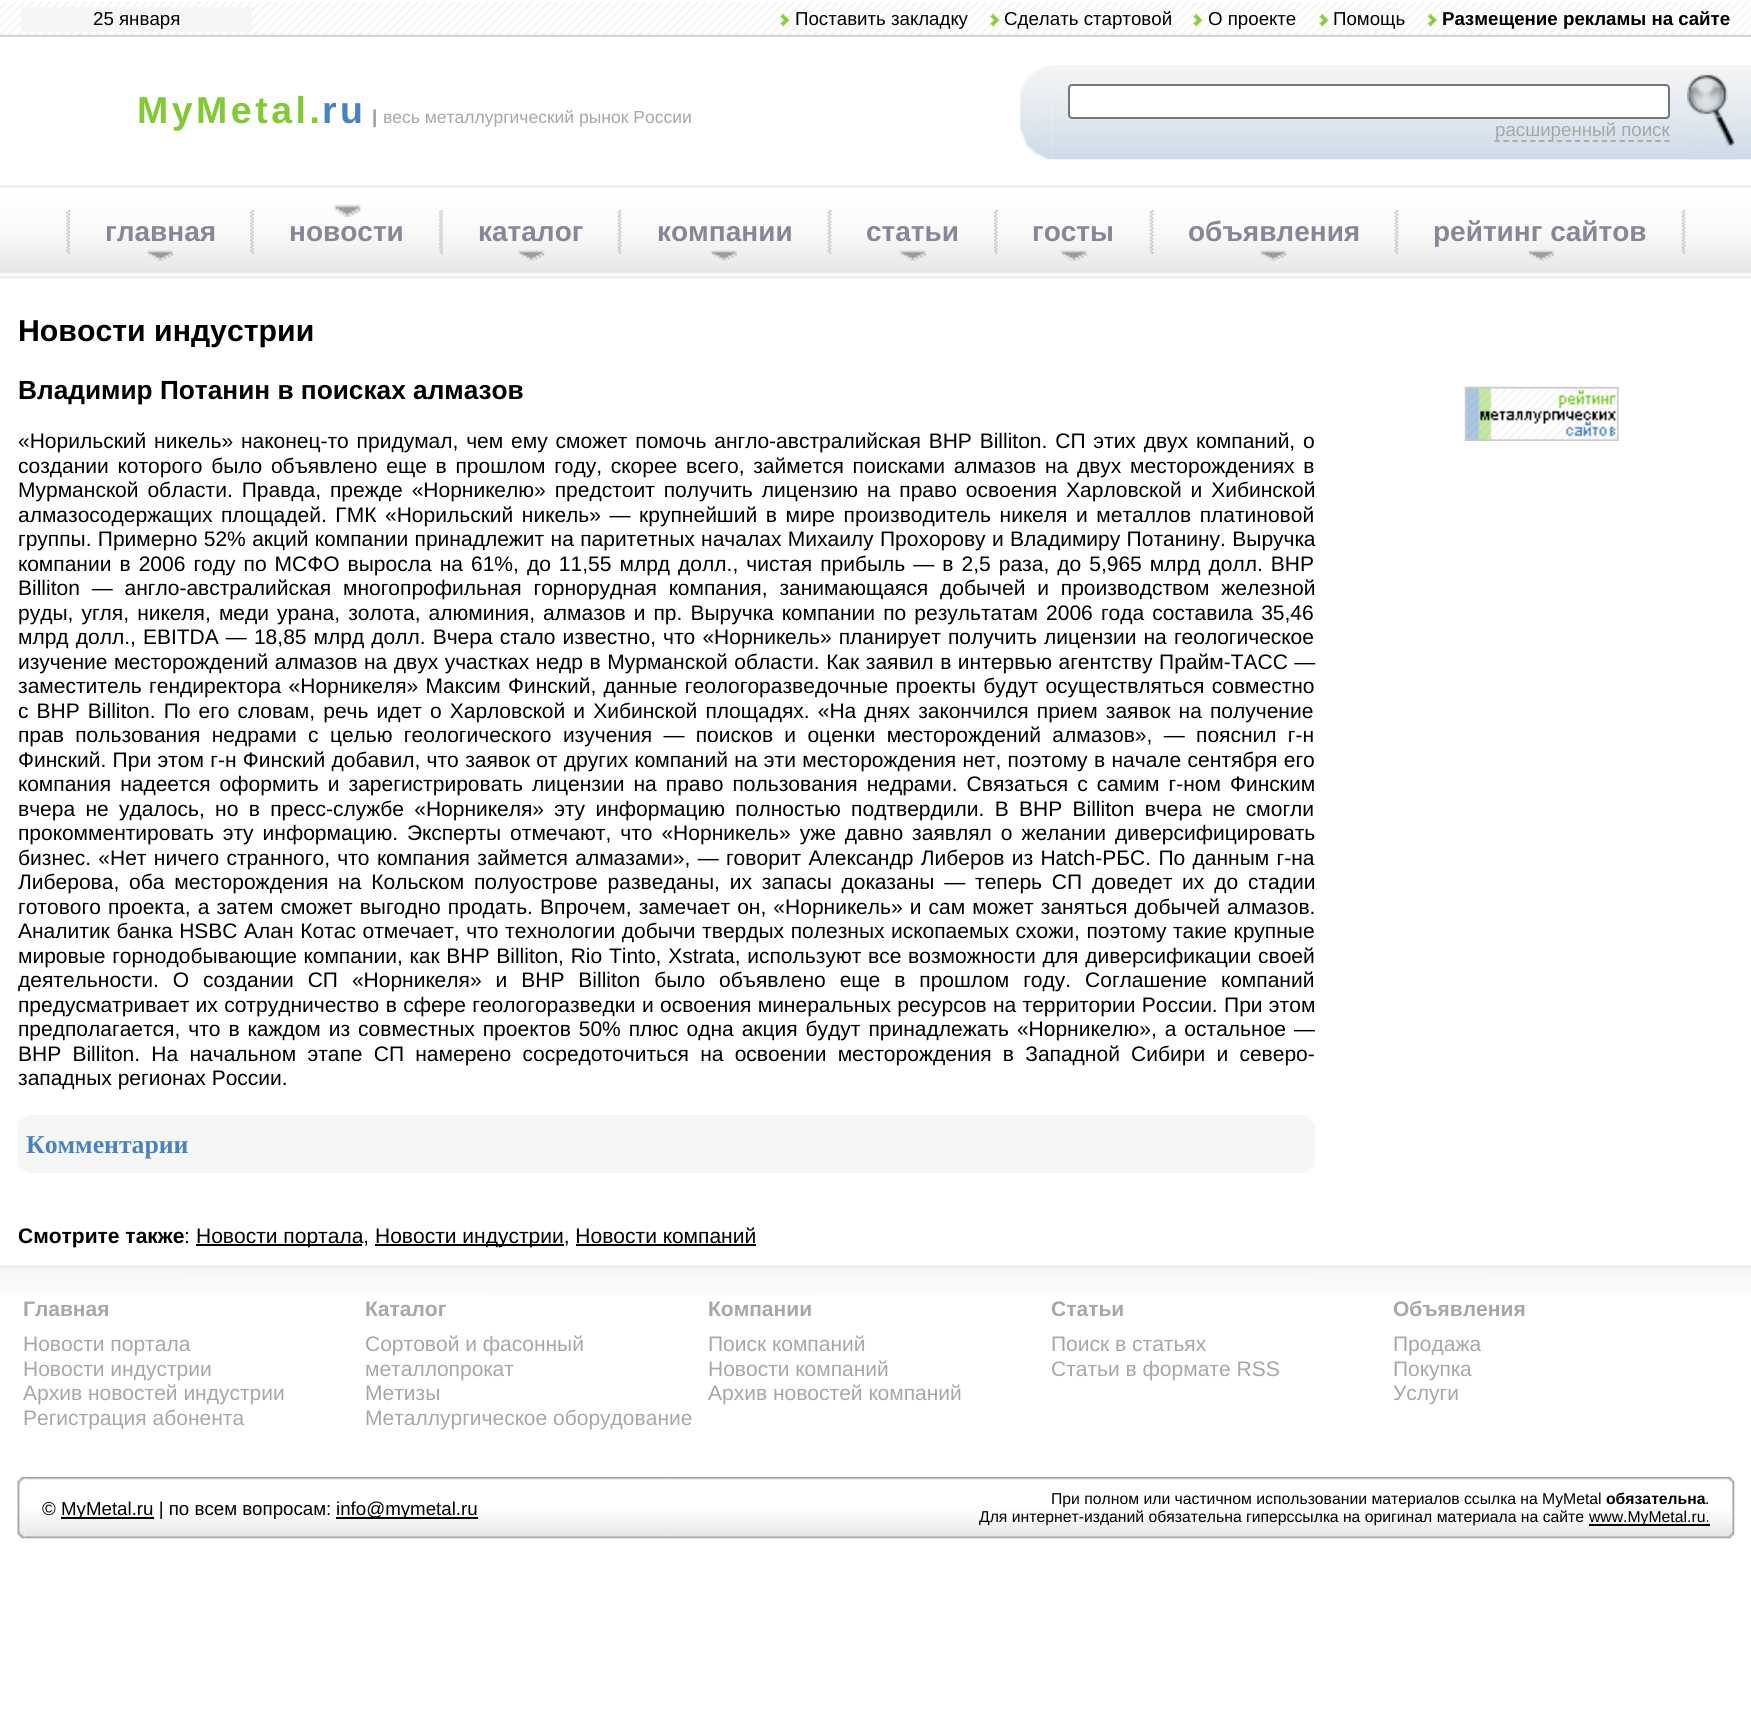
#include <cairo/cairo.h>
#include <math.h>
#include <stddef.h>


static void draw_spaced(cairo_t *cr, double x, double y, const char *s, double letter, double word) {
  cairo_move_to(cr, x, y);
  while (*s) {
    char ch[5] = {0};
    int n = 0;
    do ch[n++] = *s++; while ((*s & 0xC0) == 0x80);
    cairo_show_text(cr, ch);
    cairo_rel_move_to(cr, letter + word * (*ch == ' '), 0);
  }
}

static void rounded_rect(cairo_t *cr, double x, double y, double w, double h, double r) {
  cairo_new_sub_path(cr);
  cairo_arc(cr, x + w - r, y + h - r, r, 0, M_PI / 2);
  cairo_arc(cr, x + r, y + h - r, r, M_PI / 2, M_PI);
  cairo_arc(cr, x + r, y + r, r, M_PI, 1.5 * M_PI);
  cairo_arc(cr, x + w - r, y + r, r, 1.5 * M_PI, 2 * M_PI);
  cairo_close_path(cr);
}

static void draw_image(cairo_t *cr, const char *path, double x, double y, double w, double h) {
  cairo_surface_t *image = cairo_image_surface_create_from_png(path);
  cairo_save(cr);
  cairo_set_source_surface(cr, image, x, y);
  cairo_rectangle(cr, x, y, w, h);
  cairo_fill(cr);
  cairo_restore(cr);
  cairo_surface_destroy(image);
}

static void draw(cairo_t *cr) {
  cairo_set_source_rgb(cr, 1, 1, 1);
  cairo_paint(cr);
  draw_image(cr, "images/1.png", 0, 1, 1751, 36);
  cairo_set_source_rgb(cr, 246 / 255.0, 246 / 255.0, 246 / 255.0);
  cairo_rectangle(cr, 21, 7, 231, 25);
  cairo_fill(cr);
  draw_image(cr, "images/2.png", 780, 14, 10, 13);
  draw_image(cr, "images/3.png", 990, 14, 10, 13);
  draw_image(cr, "images/4.png", 1193, 14, 10, 13);
  draw_image(cr, "images/5.png", 1319, 14, 10, 13);
  draw_image(cr, "images/6.png", 1428, 14, 9, 13);
  draw_image(cr, "images/8.png", 1051, 65, 636, 95);
  draw_image(cr, "images/7.png", 1020, 65, 32, 95);
  cairo_set_source_rgb(cr, 1, 1, 1);
  rounded_rect(cr, 1069, 85, 600, 33, 3);
  cairo_fill_preserve(cr);
  cairo_set_source_rgb(cr, 118 / 255.0, 118 / 255.0, 118 / 255.0);
  cairo_stroke(cr);
  cairo_new_path(cr);
  cairo_move_to(cr, 1494.5, 141);
  cairo_line_to(cr, 1669.5, 141);
  cairo_set_source_rgb(cr, 167 / 255.0, 167 / 255.0, 167 / 255.0);
  cairo_set_line_width(cr, 1.8);
  cairo_set_dash(cr, (double[]){5.25, 3.69}, 2, 0);
  cairo_stroke(cr);
  draw_image(cr, "images/9.png", 1687, 65, 64, 95);
  draw_image(cr, "images/10.png", 1687, 74, 48, 86);
  draw_image(cr, "images/11.png", 0, 185, 1751, 94);
  draw_image(cr, "images/12.png", 66, 210, 4, 44);
  draw_image(cr, "images/13.png", 147, 250, 27, 11);
  draw_image(cr, "images/14.png", 250, 210, 4, 44);
  draw_image(cr, "images/15.png", 334, 204, 27, 13);
  draw_image(cr, "images/14.png", 439, 210, 4, 44);
  draw_image(cr, "images/13.png", 518, 250, 27, 11);
  draw_image(cr, "images/16.png", 617, 210, 5, 44);
  draw_image(cr, "images/17.png", 710, 250, 27, 11);
  draw_image(cr, "images/18.png", 827, 210, 5, 44);
  draw_image(cr, "images/17.png", 899, 250, 27, 11);
  draw_image(cr, "images/19.png", 994, 210, 4, 44);
  draw_image(cr, "images/20.png", 1060, 250, 27, 11);
  draw_image(cr, "images/16.png", 1149, 210, 5, 44);
  draw_image(cr, "images/13.png", 1260, 250, 27, 11);
  draw_image(cr, "images/18.png", 1394, 210, 5, 44);
  draw_image(cr, "images/21.png", 1528, 250, 26, 11);
  draw_image(cr, "images/16.png", 1681, 210, 5, 44);
  cairo_set_source_rgb(cr, 246 / 255.0, 246 / 255.0, 246 / 255.0);
  cairo_rectangle(cr, 26, 1115, 1280, 2);
  cairo_fill(cr);
  cairo_rectangle(cr, 23, 1117, 1287, 1);
  cairo_fill(cr);
  cairo_rectangle(cr, 21, 1118, 1290, 2);
  cairo_fill(cr);
  cairo_rectangle(cr, 19, 1120, 1294, 4);
  cairo_fill(cr);
  cairo_rectangle(cr, 18, 1124, 1297, 43);
  cairo_fill(cr);
  cairo_rectangle(cr, 21, 1167, 1290, 2);
  cairo_fill(cr);
  cairo_rectangle(cr, 23, 1169, 1287, 2);
  cairo_fill(cr);
  cairo_rectangle(cr, 26, 1171, 1280, 2);
  cairo_fill(cr);
  cairo_set_source_rgb(cr, 0, 0, 0);
  cairo_rectangle(cr, 196, 1244, 166, 2);
  cairo_fill(cr);
  cairo_rectangle(cr, 375, 1244, 189, 2);
  cairo_fill(cr);
  cairo_rectangle(cr, 576, 1244, 180, 2);
  cairo_fill(cr);
  draw_image(cr, "images/22.png", 1464, 386, 155, 55);
  draw_image(cr, "images/23.png", 0, 1265, 1751, 30);
  draw_image(cr, "images/24.png", 17, 1477, 8, 62);
  draw_image(cr, "images/25.png", 24, 1477, 643, 62);
  cairo_rectangle(cr, 61, 1517, 93, 2);
  cairo_fill(cr);
  cairo_rectangle(cr, 336, 1517, 142, 2);
  cairo_fill(cr);
  draw_image(cr, "images/26.png", 666, 1477, 1062, 62);
  cairo_rectangle(cr, 1589, 1524, 121, 2);
  cairo_fill(cr);
  draw_image(cr, "images/27.png", 1727, 1477, 8, 62);
  cairo_select_font_face(cr, "Liberation Sans", CAIRO_FONT_SLANT_NORMAL, CAIRO_FONT_WEIGHT_NORMAL);
  cairo_set_font_size(cr, 18.7);
  cairo_move_to(cr, 93, 25);
  cairo_show_text(cr, "25 января");
  cairo_move_to(cr, 795, 25);
  cairo_show_text(cr, "Поставить закладку");
  cairo_move_to(cr, 1004, 25);
  cairo_show_text(cr, "Сделать стартовой");
  cairo_move_to(cr, 1208, 25);
  cairo_show_text(cr, "О проекте");
  cairo_move_to(cr, 1333, 25);
  cairo_show_text(cr, "Помощь");
  cairo_select_font_face(cr, "Liberation Sans", CAIRO_FONT_SLANT_NORMAL, CAIRO_FONT_WEIGHT_BOLD);
  cairo_move_to(cr, 1442, 25);
  cairo_show_text(cr, "Размещение рекламы на сайте");
  cairo_set_font_size(cr, 37.5);
  cairo_set_source_rgb(cr, 130 / 255.0, 201 / 255.0, 54 / 255.0);
  draw_spaced(cr, 137, 123, "MyMetal.", 3.5, 0);
  cairo_set_source_rgb(cr, 72 / 255.0, 131 / 255.0, 192 / 255.0);
  draw_spaced(cr, 322, 123, "ru", 3.5, 0);
  cairo_set_font_size(cr, 18.7);
  cairo_set_source_rgb(cr, 151 / 255.0, 151 / 255.0, 151 / 255.0);
  cairo_move_to(cr, 372, 123);
  cairo_show_text(cr, "|");
  cairo_select_font_face(cr, "Liberation Sans", CAIRO_FONT_SLANT_NORMAL, CAIRO_FONT_WEIGHT_NORMAL);
  cairo_set_font_size(cr, 17.5);
  cairo_set_source_rgb(cr, 167 / 255.0, 167 / 255.0, 167 / 255.0);
  cairo_move_to(cr, 383, 123);
  cairo_show_text(cr, "весь металлургический рынок России");
  cairo_set_font_size(cr, 18.7);
  cairo_move_to(cr, 1495, 136);
  cairo_show_text(cr, "расширенный поиск");
  cairo_select_font_face(cr, "Liberation Sans", CAIRO_FONT_SLANT_NORMAL, CAIRO_FONT_WEIGHT_BOLD);
  cairo_set_font_size(cr, 28);
  cairo_set_source_rgb(cr, 135 / 255.0, 135 / 255.0, 155 / 255.0);
  cairo_move_to(cr, 105, 241);
  cairo_show_text(cr, "главная");
  cairo_move_to(cr, 289, 241);
  cairo_show_text(cr, "новости");
  cairo_move_to(cr, 478, 241);
  cairo_show_text(cr, "каталог");
  cairo_move_to(cr, 657, 241);
  cairo_show_text(cr, "компании");
  cairo_move_to(cr, 866, 241);
  cairo_show_text(cr, "статьи");
  cairo_move_to(cr, 1032, 241);
  cairo_show_text(cr, "госты");
  cairo_move_to(cr, 1188, 241);
  cairo_show_text(cr, "объявления");
  cairo_move_to(cr, 1433, 241);
  cairo_show_text(cr, "рейтинг сайтов");
  cairo_set_font_size(cr, 30.25);
  cairo_set_source_rgb(cr, 0, 0, 0);
  cairo_move_to(cr, 18, 341);
  cairo_show_text(cr, "Новости индустрии");
  cairo_set_font_size(cr, 26.25);
  cairo_move_to(cr, 18, 399);
  cairo_show_text(cr, "Владимир Потанин в поисках алмазов");
  cairo_select_font_face(cr, "Liberation Sans", CAIRO_FONT_SLANT_NORMAL, CAIRO_FONT_WEIGHT_NORMAL);
  cairo_set_font_size(cr, 21);
  draw_spaced(cr, 18, 448, "«Норильский никель» наконец-то придумал, чем ему сможет помочь англо-австралийская BHP Billiton. СП этих двух компаний, о", 0, 2);
  draw_spaced(cr, 18, 473, "создании которого было объявлено еще в прошлом году, скорее всего, займется поисками алмазов на двух месторождениях в", 0, 2.9);
  draw_spaced(cr, 18, 497, "Мурманской области. Правда, прежде «Норникелю» предстоит получить лицензию на право освоения Харловской и Хибинской", 0, 3.1);
  draw_spaced(cr, 18, 522, "алмазосодержащих площадей. ГМК «Норильский никель» — крупнейший в мире производитель никеля и металлов платиновой", 0, 2.75);
  draw_spaced(cr, 18, 546, "группы. Примерно 52% акций компании принадлежит на паритетных началах Михаилу Прохорову и Владимиру Потанину. Выручка", 0, 0.5);
  draw_spaced(cr, 18, 571, "компании в 2006 году по МСФО выросла на 61%, до 11,55 млрд долл., чистая прибыль — в 2,5 раза, до 5,965 млрд долл. BHP", 0, 2.2);
  draw_spaced(cr, 18, 595, "Billiton — англо-австралийская многопрофильная горнорудная компания, занимающаяся добычей и производством железной", 0, 6);
  draw_spaced(cr, 18, 620, "руды, угля, никеля, меди урана, золота, алюминия, алмазов и пр. Выручка компании по результатам 2006 года составила 35,46", 0, 2.25);
  draw_spaced(cr, 18, 644, "млрд долл., EBITDA — 18,85 млрд долл. Вчера стало известно, что «Норникель» планирует получить лицензии на геологическое", 0, 1.25);
  draw_spaced(cr, 18, 669, "изучение месторождений алмазов на двух участках недр в Мурманской области. Как заявил в интервью агентству Прайм-ТАСС —", 0, 0.7);
  draw_spaced(cr, 18, 693, "заместитель гендиректора «Норникеля» Максим Финский, данные геологоразведочные проекты будут осуществляться совместно", 0, 1.5);
  draw_spaced(cr, 18, 718, "с BHP Billiton. По его словам, речь идет о Харловской и Хибинской площадях. «На днях закончился прием заявок на получение", 0, 2.25);
  draw_spaced(cr, 18, 742, "прав пользования недрами с целью геологического изучения — поисков и оценки месторождений алмазов», — пояснил г-н", 0, 5.5);
  draw_spaced(cr, 18, 767, "Финский. При этом г-н Финский добавил, что заявок от других компаний на эти месторождения нет, поэтому в начале сентября его", 0, 0.5);
  draw_spaced(cr, 18, 791, "компания надеется оформить и зарегистрировать лицензии на право пользования недрами. Связаться с самим г-ном Финским", 0, 3.25);
  draw_spaced(cr, 18, 816, "вчера не удалось, но в пресс-службе «Норникеля» эту информацию полностью подтвердили. В BHP Billiton вчера не смогли", 0, 4.5);
  draw_spaced(cr, 18, 840, "прокомментировать эту информацию. Эксперты отмечают, что «Норникель» уже давно заявлял о желании диверсифицировать", 0, 3.1);
  draw_spaced(cr, 18, 865, "бизнес. «Нет ничего странного, что компания займется алмазами», — говорит Александр Либеров из Hatch-РБС. По данным г-на", 0, 1.5);
  draw_spaced(cr, 18, 889, "Либерова, оба месторождения на Кольском полуострове разведаны, их запасы доказаны — теперь СП доведет их до стадии", 0, 4);
  draw_spaced(cr, 18, 914, "готового проекта, а затем сможет выгодно продать. Впрочем, замечает он, «Норникель» и сам может заняться добычей алмазов.", 0, 1.25);
  draw_spaced(cr, 18, 938, "Аналитик банка HSBC Алан Котас отмечает, что технологии добычи твердых полезных ископаемых схожи, поэтому такие крупные", 0, 0.75);
  draw_spaced(cr, 18, 963, "мировые горнодобывающие компании, как BHP Billiton, Rio Tinto, Xstrata, используют все возможности для диверсификации своей", 0, 0.9);
  draw_spaced(cr, 18, 987, "деятельности. О создании СП «Норникеля» и BHP Billiton было объявлено еще в прошлом году. Соглашение компаний", 0, 8.1);
  draw_spaced(cr, 18, 1012, "предусматривает их сотрудничество в сфере геологоразведки и освоения минеральных ресурсов на территории России. При этом", 0, 0.5);
  draw_spaced(cr, 18, 1036, "предполагается, что в каждом из совместных проектов 50% плюс одна акция будут принадлежать «Норникелю», а остальное —", 0, 2.1);
  draw_spaced(cr, 18, 1061, "BHP Billiton. На начальном этапе СП намерено сосредоточиться на освоении месторождения в Западной Сибири и северо-", 0, 5.4);
  cairo_move_to(cr, 18, 1085);
  cairo_show_text(cr, "западных регионах России.");
  cairo_select_font_face(cr, "Liberation Serif", CAIRO_FONT_SLANT_NORMAL, CAIRO_FONT_WEIGHT_BOLD);
  cairo_set_font_size(cr, 25.75);
  cairo_set_source_rgb(cr, 72 / 255.0, 131 / 255.0, 192 / 255.0);
  cairo_move_to(cr, 26, 1153);
  cairo_show_text(cr, "Комментарии");
  cairo_select_font_face(cr, "Liberation Sans", CAIRO_FONT_SLANT_NORMAL, CAIRO_FONT_WEIGHT_BOLD);
  cairo_set_font_size(cr, 21);
  cairo_set_source_rgb(cr, 0, 0, 0);
  cairo_move_to(cr, 18, 1243);
  cairo_show_text(cr, "Смотрите также");
  cairo_select_font_face(cr, "Liberation Sans", CAIRO_FONT_SLANT_NORMAL, CAIRO_FONT_WEIGHT_NORMAL);
  cairo_move_to(cr, 184, 1243);
  cairo_show_text(cr, ":");
  cairo_move_to(cr, 196, 1243);
  cairo_show_text(cr, "Новости портала,");
  cairo_move_to(cr, 375, 1243);
  cairo_show_text(cr, "Новости индустрии, Новости компаний");
  cairo_select_font_face(cr, "Liberation Sans", CAIRO_FONT_SLANT_NORMAL, CAIRO_FONT_WEIGHT_BOLD);
  cairo_set_source_rgb(cr, 167 / 255.0, 167 / 255.0, 167 / 255.0);
  cairo_move_to(cr, 23, 1316);
  cairo_show_text(cr, "Главная");
  cairo_select_font_face(cr, "Liberation Sans", CAIRO_FONT_SLANT_NORMAL, CAIRO_FONT_WEIGHT_NORMAL);
  cairo_move_to(cr, 23, 1351);
  cairo_show_text(cr, "Новости портала");
  cairo_move_to(cr, 23, 1376);
  cairo_show_text(cr, "Новости индустрии");
  cairo_move_to(cr, 23, 1400);
  cairo_show_text(cr, "Архив новостей индустрии");
  cairo_move_to(cr, 23, 1425);
  cairo_show_text(cr, "Регистрация абонента");
  cairo_select_font_face(cr, "Liberation Sans", CAIRO_FONT_SLANT_NORMAL, CAIRO_FONT_WEIGHT_BOLD);
  cairo_move_to(cr, 365, 1316);
  cairo_show_text(cr, "Каталог");
  cairo_select_font_face(cr, "Liberation Sans", CAIRO_FONT_SLANT_NORMAL, CAIRO_FONT_WEIGHT_NORMAL);
  cairo_move_to(cr, 365, 1351);
  cairo_show_text(cr, "Сортовой и фасонный");
  cairo_move_to(cr, 365, 1376);
  cairo_show_text(cr, "металлопрокат");
  cairo_move_to(cr, 365, 1400);
  cairo_show_text(cr, "Метизы");
  cairo_move_to(cr, 365, 1425);
  cairo_show_text(cr, "Металлургическое оборудование");
  cairo_select_font_face(cr, "Liberation Sans", CAIRO_FONT_SLANT_NORMAL, CAIRO_FONT_WEIGHT_BOLD);
  cairo_move_to(cr, 708, 1316);
  cairo_show_text(cr, "Компании");
  cairo_select_font_face(cr, "Liberation Sans", CAIRO_FONT_SLANT_NORMAL, CAIRO_FONT_WEIGHT_NORMAL);
  cairo_move_to(cr, 708, 1351);
  cairo_show_text(cr, "Поиск компаний");
  cairo_move_to(cr, 708, 1376);
  cairo_show_text(cr, "Новости компаний");
  cairo_move_to(cr, 708, 1400);
  cairo_show_text(cr, "Архив новостей компаний");
  cairo_select_font_face(cr, "Liberation Sans", CAIRO_FONT_SLANT_NORMAL, CAIRO_FONT_WEIGHT_BOLD);
  cairo_move_to(cr, 1051, 1316);
  cairo_show_text(cr, "Статьи");
  cairo_select_font_face(cr, "Liberation Sans", CAIRO_FONT_SLANT_NORMAL, CAIRO_FONT_WEIGHT_NORMAL);
  cairo_move_to(cr, 1051, 1351);
  cairo_show_text(cr, "Поиск в статьях");
  cairo_move_to(cr, 1051, 1376);
  cairo_show_text(cr, "Статьи в формате RSS");
  cairo_select_font_face(cr, "Liberation Sans", CAIRO_FONT_SLANT_NORMAL, CAIRO_FONT_WEIGHT_BOLD);
  cairo_move_to(cr, 1393, 1316);
  cairo_show_text(cr, "Объявления");
  cairo_select_font_face(cr, "Liberation Sans", CAIRO_FONT_SLANT_NORMAL, CAIRO_FONT_WEIGHT_NORMAL);
  cairo_move_to(cr, 1393, 1351);
  cairo_show_text(cr, "Продажа");
  cairo_move_to(cr, 1393, 1376);
  cairo_show_text(cr, "Покупка");
  cairo_move_to(cr, 1393, 1400);
  cairo_show_text(cr, "Услуги");
  cairo_set_font_size(cr, 18.7);
  cairo_set_source_rgb(cr, 0, 0, 0);
  cairo_move_to(cr, 42, 1515);
  cairo_show_text(cr, "©");
  cairo_move_to(cr, 61, 1515);
  cairo_show_text(cr, "MyMetal.ru | по всем вопросам:");
  cairo_move_to(cr, 336, 1515);
  cairo_show_text(cr, "info@mymetal.ru");
  cairo_set_font_size(cr, 15.75);
  cairo_move_to(cr, 1051, 1504);
  cairo_show_text(cr, "При полном или частичном использовании материалов ссылка на MyMetal");
  cairo_select_font_face(cr, "Liberation Sans", CAIRO_FONT_SLANT_NORMAL, CAIRO_FONT_WEIGHT_BOLD);
  cairo_move_to(cr, 1606, 1504);
  cairo_show_text(cr, "обязательна");
  cairo_select_font_face(cr, "Liberation Sans", CAIRO_FONT_SLANT_NORMAL, CAIRO_FONT_WEIGHT_NORMAL);
  cairo_move_to(cr, 1705, 1504);
  cairo_show_text(cr, ".");
  cairo_move_to(cr, 979, 1522);
  cairo_show_text(cr, "Для интернет-изданий обязательна гиперссылка на оригинал материала на сайте");
  cairo_move_to(cr, 1589, 1522);
  cairo_show_text(cr, "www.MyMetal.ru.");
}

int main(void) {
  cairo_surface_t *surface = cairo_image_surface_create(CAIRO_FORMAT_RGB24, 1751, 1721);
  cairo_t *cr = cairo_create(surface);
  cairo_font_options_t *options = cairo_font_options_create();
  cairo_font_options_set_hint_metrics(options, CAIRO_HINT_METRICS_OFF);
  cairo_font_options_set_hint_style(options, CAIRO_HINT_STYLE_NONE);
  cairo_set_font_options(cr, options);
  cairo_set_miter_limit(cr, 4);
  draw(cr);
  cairo_surface_write_to_png(surface, "out.png");
  cairo_font_options_destroy(options);
  cairo_destroy(cr);
  cairo_surface_destroy(surface);
  return 0;
}
